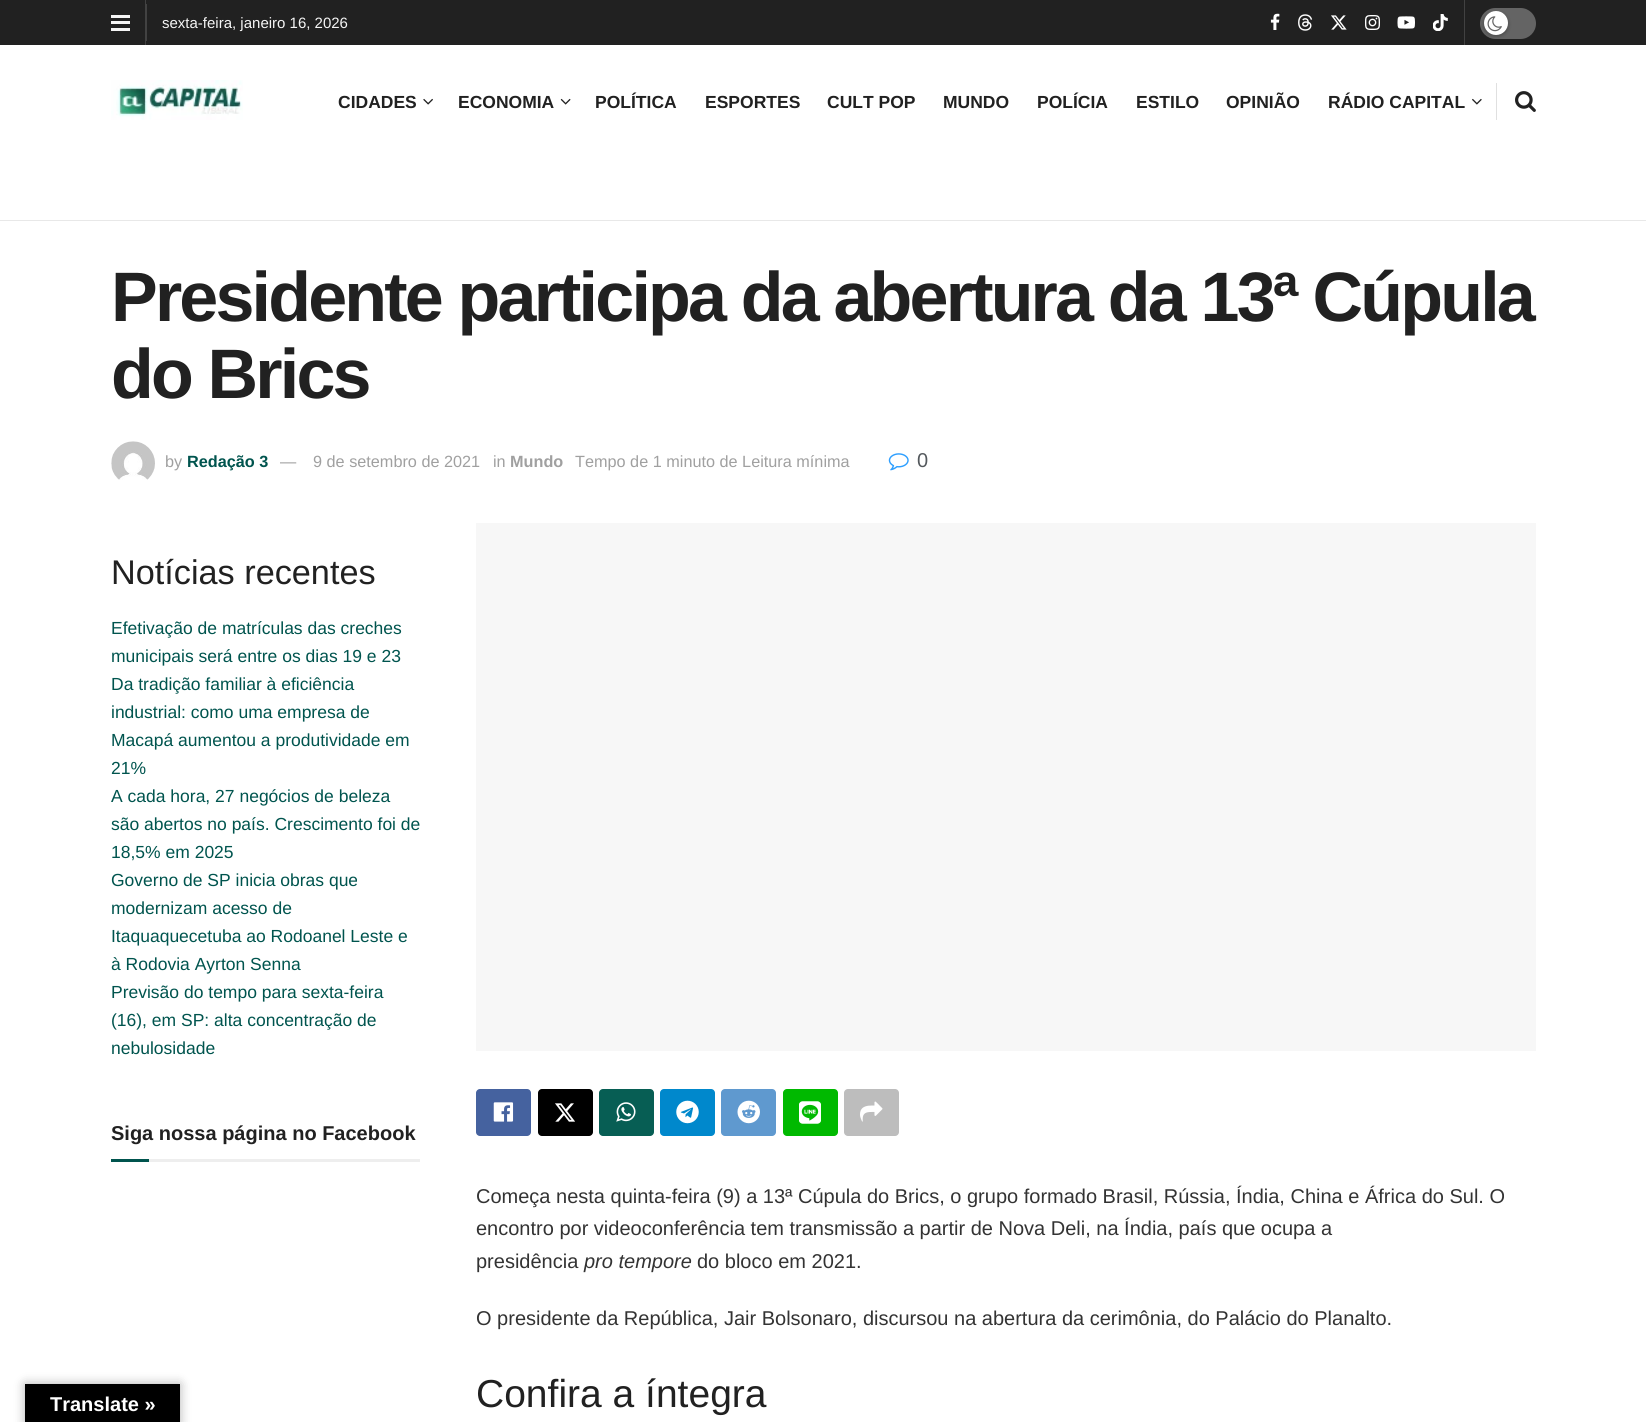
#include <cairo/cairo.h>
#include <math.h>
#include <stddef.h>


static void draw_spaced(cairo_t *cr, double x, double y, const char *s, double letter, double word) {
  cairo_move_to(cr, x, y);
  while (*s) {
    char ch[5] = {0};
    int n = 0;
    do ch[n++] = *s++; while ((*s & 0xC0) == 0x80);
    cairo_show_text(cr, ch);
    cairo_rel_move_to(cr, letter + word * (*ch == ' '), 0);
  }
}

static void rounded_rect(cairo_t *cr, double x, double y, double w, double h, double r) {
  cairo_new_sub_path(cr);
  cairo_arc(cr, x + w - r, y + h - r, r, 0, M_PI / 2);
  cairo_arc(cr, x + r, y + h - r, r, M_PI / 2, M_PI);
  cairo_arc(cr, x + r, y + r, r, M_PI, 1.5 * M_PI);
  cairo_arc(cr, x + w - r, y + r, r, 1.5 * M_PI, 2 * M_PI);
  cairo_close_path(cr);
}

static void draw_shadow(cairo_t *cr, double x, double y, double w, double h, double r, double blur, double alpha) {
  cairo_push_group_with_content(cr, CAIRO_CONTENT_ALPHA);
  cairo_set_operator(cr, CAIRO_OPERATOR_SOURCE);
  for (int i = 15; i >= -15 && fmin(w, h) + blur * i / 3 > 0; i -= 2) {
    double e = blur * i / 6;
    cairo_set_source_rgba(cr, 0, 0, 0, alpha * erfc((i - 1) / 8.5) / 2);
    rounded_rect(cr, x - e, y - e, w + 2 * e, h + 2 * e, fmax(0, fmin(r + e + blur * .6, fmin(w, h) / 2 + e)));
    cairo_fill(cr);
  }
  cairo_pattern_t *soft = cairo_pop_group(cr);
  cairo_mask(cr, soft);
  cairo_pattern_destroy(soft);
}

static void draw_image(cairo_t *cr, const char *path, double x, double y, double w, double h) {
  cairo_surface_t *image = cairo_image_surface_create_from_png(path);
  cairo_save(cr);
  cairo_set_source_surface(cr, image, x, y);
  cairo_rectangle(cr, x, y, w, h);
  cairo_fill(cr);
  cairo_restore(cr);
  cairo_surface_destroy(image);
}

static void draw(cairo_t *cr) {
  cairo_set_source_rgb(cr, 1, 1, 1);
  cairo_paint(cr);
  cairo_set_source_rgb(cr, 0, 0, 0);
  draw_shadow(cr, 25, 1384, 155, 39, 0, 5.5, 0.3);
  cairo_set_source_rgb(cr, 0, 0, 0);
  cairo_rectangle(cr, 25, 1384, 155, 38);
  cairo_fill(cr);
  cairo_set_source_rgb(cr, 33 / 255.0, 33 / 255.0, 33 / 255.0);
  cairo_rectangle(cr, 0, 0, 1646, 45);
  cairo_fill(cr);
  cairo_set_source_rgb(cr, 66 / 255.0, 66 / 255.0, 66 / 255.0);
  cairo_rectangle(cr, 1464, 0, 1, 45);
  cairo_fill(cr);
  cairo_rectangle(cr, 145, 0, 1, 45);
  cairo_fill(cr);
  cairo_set_source_rgb(cr, 245 / 255.0, 245 / 255.0, 245 / 255.0);
  cairo_rectangle(cr, 111, 15, 19, 3);
  cairo_fill(cr);
  cairo_rectangle(cr, 111, 21, 19, 3);
  cairo_fill(cr);
  cairo_rectangle(cr, 111, 28, 19, 3);
  cairo_fill(cr);
  cairo_set_source_rgb(cr, 66 / 255.0, 66 / 255.0, 66 / 255.0);
  cairo_rectangle(cr, 146, 4, 1, 37);
  cairo_fill(cr);
  draw_image(cr, "images/1.png", 1270, 13, 10, 17);
  draw_image(cr, "images/2.png", 1298, 14, 15, 17);
  draw_image(cr, "images/3.png", 1331, 15, 16, 15);
  draw_image(cr, "images/4.png", 1365, 15, 15, 15);
  draw_image(cr, "images/5.png", 1397, 16, 18, 13);
  draw_image(cr, "images/6.png", 1433, 14, 15, 17);
  cairo_set_source_rgb(cr, 100 / 255.0, 100 / 255.0, 100 / 255.0);
  rounded_rect(cr, 1480, 8, 56, 31, 15.5);
  cairo_fill(cr);
  cairo_set_source_rgb(cr, 0, 0, 0);
  draw_shadow(cr, 1484, 13, 24, 23, 11.5, 2, 0.3);
  cairo_set_source_rgb(cr, 1, 1, 1);
  cairo_arc(cr, 1496, 23, 12, 0, 2 * M_PI);
  cairo_fill(cr);
  draw_image(cr, "images/7.png", 1487, 16, 15, 16);
  draw_image(cr, "images/8.png", 111, 80, 132, 40);
  draw_image(cr, "images/9.png", 423, 98, 10, 7);
  draw_image(cr, "images/10.png", 560, 98, 11, 7);
  draw_image(cr, "images/11.png", 1472, 98, 10, 7);
  cairo_set_source_rgb(cr, 224 / 255.0, 224 / 255.0, 224 / 255.0);
  cairo_rectangle(cr, 1496, 83, 1, 37);
  cairo_fill(cr);
  draw_image(cr, "images/12.png", 1515, 91, 21, 21);
  cairo_set_source_rgb(cr, 232 / 255.0, 232 / 255.0, 232 / 255.0);
  cairo_rectangle(cr, 0, 220, 1646, 1);
  cairo_fill(cr);
  draw_image(cr, "images/13.png", 111, 441, 44, 39);
  draw_image(cr, "images/14.png", 888, 453, 21, 18);
  cairo_set_source_rgb(cr, 238 / 255.0, 238 / 255.0, 238 / 255.0);
  cairo_rectangle(cr, 149, 1159, 271, 3);
  cairo_fill(cr);
  cairo_set_source_rgb(cr, 0, 84 / 255.0, 78 / 255.0);
  cairo_rectangle(cr, 111, 1159, 38, 3);
  cairo_fill(cr);
  cairo_set_source_rgb(cr, 247 / 255.0, 247 / 255.0, 247 / 255.0);
  cairo_rectangle(cr, 476, 523, 1060, 528);
  cairo_fill(cr);
  cairo_set_source_rgb(cr, 69 / 255.0, 98 / 255.0, 159 / 255.0);
  rounded_rect(cr, 476, 1089, 55, 47, 4);
  cairo_fill(cr);
  draw_image(cr, "images/15.png", 493, 1102, 21, 20);
  cairo_set_source_rgb(cr, 0, 0, 0);
  rounded_rect(cr, 538, 1089, 55, 47, 4);
  cairo_fill(cr);
  draw_image(cr, "images/16.png", 555, 1103, 20, 19);
  cairo_set_source_rgb(cr, 7 / 255.0, 94 / 255.0, 84 / 255.0);
  rounded_rect(cr, 599, 1089, 55, 47, 4);
  cairo_fill(cr);
  draw_image(cr, "images/17.png", 616, 1102, 20, 20);
  cairo_set_source_rgb(cr, 0, 136 / 255.0, 204 / 255.0);
  rounded_rect(cr, 660, 1089, 55, 47, 4);
  cairo_fill(cr);
  draw_image(cr, "images/18.png", 676, 1100, 23, 24);
  cairo_set_source_rgb(cr, 95 / 255.0, 153 / 255.0, 207 / 255.0);
  rounded_rect(cr, 721, 1089, 55, 47, 4);
  cairo_fill(cr);
  draw_image(cr, "images/19.png", 737, 1100, 23, 24);
  cairo_set_source_rgb(cr, 0, 185 / 255.0, 0);
  rounded_rect(cr, 783, 1089, 55, 47, 4);
  cairo_fill(cr);
  draw_image(cr, "images/20.png", 799, 1101, 22, 23);
  cairo_set_source_rgb(cr, 189 / 255.0, 189 / 255.0, 189 / 255.0);
  rounded_rect(cr, 844, 1089, 55, 47, 4);
  cairo_fill(cr);
  draw_image(cr, "images/21.png", 860, 1101, 23, 21);
  cairo_select_font_face(cr, "Liberation Sans", CAIRO_FONT_SLANT_NORMAL, CAIRO_FONT_WEIGHT_BOLD);
  cairo_set_font_size(cr, 20);
  cairo_set_source_rgb(cr, 1, 1, 1);
  cairo_move_to(cr, 50, 1411);
  cairo_show_text(cr, "Translate »");
  cairo_select_font_face(cr, "Liberation Sans", CAIRO_FONT_SLANT_NORMAL, CAIRO_FONT_WEIGHT_NORMAL);
  cairo_set_font_size(cr, 15);
  cairo_set_source_rgb(cr, 245 / 255.0, 245 / 255.0, 245 / 255.0);
  cairo_move_to(cr, 162, 28);
  cairo_show_text(cr, "sexta-feira, janeiro 16, 2026");
  cairo_select_font_face(cr, "Liberation Sans", CAIRO_FONT_SLANT_NORMAL, CAIRO_FONT_WEIGHT_BOLD);
  cairo_set_font_size(cr, 17.5);
  cairo_set_source_rgb(cr, 33 / 255.0, 33 / 255.0, 33 / 255.0);
  cairo_move_to(cr, 338, 108);
  cairo_show_text(cr, "CIDADES");
  cairo_move_to(cr, 458, 108);
  cairo_show_text(cr, "ECONOMIA");
  cairo_move_to(cr, 595, 108);
  cairo_show_text(cr, "POLÍTICA");
  cairo_move_to(cr, 705, 108);
  cairo_show_text(cr, "ESPORTES");
  cairo_move_to(cr, 827, 108);
  cairo_show_text(cr, "CULT POP");
  cairo_move_to(cr, 943, 108);
  cairo_show_text(cr, "MUNDO");
  cairo_move_to(cr, 1037, 108);
  cairo_show_text(cr, "POLÍCIA");
  cairo_move_to(cr, 1136, 108);
  cairo_show_text(cr, "ESTILO");
  cairo_move_to(cr, 1226, 108);
  cairo_show_text(cr, "OPINIÃO");
  cairo_move_to(cr, 1328, 108);
  cairo_show_text(cr, "RÁDIO CAPITAL");
  cairo_set_font_size(cr, 70);
  draw_spaced(cr, 111, 321, "Presidente participa da abertura da 13ª Cúpula", -2.8, 0);
  draw_spaced(cr, 111, 398, "do Brics", -2.8, 0);
  cairo_select_font_face(cr, "Liberation Sans", CAIRO_FONT_SLANT_NORMAL, CAIRO_FONT_WEIGHT_NORMAL);
  cairo_set_font_size(cr, 16.25);
  cairo_set_source_rgb(cr, 160 / 255.0, 160 / 255.0, 160 / 255.0);
  cairo_move_to(cr, 165, 467);
  cairo_show_text(cr, "by");
  cairo_select_font_face(cr, "Liberation Sans", CAIRO_FONT_SLANT_NORMAL, CAIRO_FONT_WEIGHT_BOLD);
  cairo_set_source_rgb(cr, 0, 84 / 255.0, 78 / 255.0);
  cairo_move_to(cr, 187, 467);
  cairo_show_text(cr, "Redação 3");
  cairo_select_font_face(cr, "Liberation Sans", CAIRO_FONT_SLANT_NORMAL, CAIRO_FONT_WEIGHT_NORMAL);
  cairo_set_source_rgb(cr, 160 / 255.0, 160 / 255.0, 160 / 255.0);
  cairo_move_to(cr, 280, 467);
  cairo_show_text(cr, "—");
  cairo_move_to(cr, 313, 467);
  cairo_show_text(cr, "9 de setembro de 2021");
  cairo_move_to(cr, 493, 467);
  cairo_show_text(cr, "in");
  cairo_select_font_face(cr, "Liberation Sans", CAIRO_FONT_SLANT_NORMAL, CAIRO_FONT_WEIGHT_BOLD);
  cairo_move_to(cr, 510, 467);
  cairo_show_text(cr, "Mundo");
  cairo_select_font_face(cr, "Liberation Sans", CAIRO_FONT_SLANT_NORMAL, CAIRO_FONT_WEIGHT_NORMAL);
  cairo_move_to(cr, 575, 467);
  cairo_show_text(cr, "Tempo de 1 minuto de Leitura mínima");
  cairo_set_font_size(cr, 20);
  cairo_set_source_rgb(cr, 83 / 255.0, 88 / 255.0, 92 / 255.0);
  cairo_move_to(cr, 917, 467);
  cairo_show_text(cr, "0");
  cairo_set_font_size(cr, 34.25);
  cairo_set_source_rgb(cr, 33 / 255.0, 33 / 255.0, 33 / 255.0);
  cairo_move_to(cr, 111, 584);
  cairo_show_text(cr, "Notícias recentes");
  cairo_set_font_size(cr, 17.5);
  cairo_set_source_rgb(cr, 0, 84 / 255.0, 78 / 255.0);
  cairo_move_to(cr, 111, 634);
  cairo_show_text(cr, "Efetivação de matrículas das creches");
  cairo_move_to(cr, 111, 662);
  cairo_show_text(cr, "municipais será entre os dias 19 e 23");
  cairo_move_to(cr, 111, 690);
  cairo_show_text(cr, "Da tradição familiar à eficiência");
  cairo_move_to(cr, 111, 718);
  cairo_show_text(cr, "industrial: como uma empresa de");
  cairo_move_to(cr, 111, 746);
  cairo_show_text(cr, "Macapá aumentou a produtividade em");
  cairo_move_to(cr, 111, 774);
  cairo_show_text(cr, "21%");
  cairo_move_to(cr, 111, 802);
  cairo_show_text(cr, "A cada hora, 27 negócios de beleza");
  cairo_move_to(cr, 111, 830);
  cairo_show_text(cr, "são abertos no país. Crescimento foi de");
  cairo_move_to(cr, 111, 858);
  cairo_show_text(cr, "18,5% em 2025");
  cairo_move_to(cr, 111, 886);
  cairo_show_text(cr, "Governo de SP inicia obras que");
  cairo_move_to(cr, 111, 914);
  cairo_show_text(cr, "modernizam acesso de");
  cairo_move_to(cr, 111, 942);
  cairo_show_text(cr, "Itaquaquecetuba ao Rodoanel Leste e");
  cairo_move_to(cr, 111, 970);
  cairo_show_text(cr, "à Rodovia Ayrton Senna");
  cairo_move_to(cr, 111, 998);
  cairo_show_text(cr, "Previsão do tempo para sexta-feira");
  cairo_move_to(cr, 111, 1026);
  cairo_show_text(cr, "(16), em SP: alta concentração de");
  cairo_move_to(cr, 111, 1054);
  cairo_show_text(cr, "nebulosidade");
  cairo_select_font_face(cr, "Liberation Sans", CAIRO_FONT_SLANT_NORMAL, CAIRO_FONT_WEIGHT_BOLD);
  cairo_set_font_size(cr, 20);
  cairo_set_source_rgb(cr, 33 / 255.0, 33 / 255.0, 33 / 255.0);
  cairo_move_to(cr, 111, 1140);
  cairo_show_text(cr, "Siga nossa página no Facebook");
  cairo_select_font_face(cr, "Liberation Sans", CAIRO_FONT_SLANT_NORMAL, CAIRO_FONT_WEIGHT_NORMAL);
  cairo_set_source_rgb(cr, 51 / 255.0, 51 / 255.0, 51 / 255.0);
  cairo_move_to(cr, 476, 1203);
  cairo_show_text(cr, "Começa nesta quinta-feira (9) a 13ª Cúpula do Brics, o grupo formado Brasil, Rússia, Índia, China e África do Sul. O");
  cairo_move_to(cr, 476, 1235);
  cairo_show_text(cr, "encontro por videoconferência tem transmissão a partir de Nova Deli, na Índia, país que ocupa a");
  cairo_move_to(cr, 476, 1268);
  cairo_show_text(cr, "presidência");
  cairo_select_font_face(cr, "Liberation Sans", CAIRO_FONT_SLANT_ITALIC, CAIRO_FONT_WEIGHT_NORMAL);
  cairo_move_to(cr, 584, 1268);
  cairo_show_text(cr, "pro tempore");
  cairo_select_font_face(cr, "Liberation Sans", CAIRO_FONT_SLANT_NORMAL, CAIRO_FONT_WEIGHT_NORMAL);
  cairo_move_to(cr, 697, 1268);
  cairo_show_text(cr, "do bloco em 2021.");
  cairo_move_to(cr, 476, 1325);
  cairo_show_text(cr, "O presidente da República, Jair Bolsonaro, discursou na abertura da cerimônia, do Palácio do Planalto.");
  cairo_set_font_size(cr, 39);
  cairo_set_source_rgb(cr, 33 / 255.0, 33 / 255.0, 33 / 255.0);
  cairo_move_to(cr, 476, 1407);
  cairo_show_text(cr, "Confira a íntegra");
}

int main(void) {
  cairo_surface_t *surface = cairo_image_surface_create(CAIRO_FORMAT_RGB24, 1646, 1422);
  cairo_t *cr = cairo_create(surface);
  cairo_font_options_t *options = cairo_font_options_create();
  cairo_font_options_set_hint_metrics(options, CAIRO_HINT_METRICS_OFF);
  cairo_font_options_set_hint_style(options, CAIRO_HINT_STYLE_NONE);
  cairo_set_font_options(cr, options);
  cairo_set_miter_limit(cr, 4);
  draw(cr);
  cairo_surface_write_to_png(surface, "out.png");
  cairo_font_options_destroy(options);
  cairo_destroy(cr);
  cairo_surface_destroy(surface);
  return 0;
}
